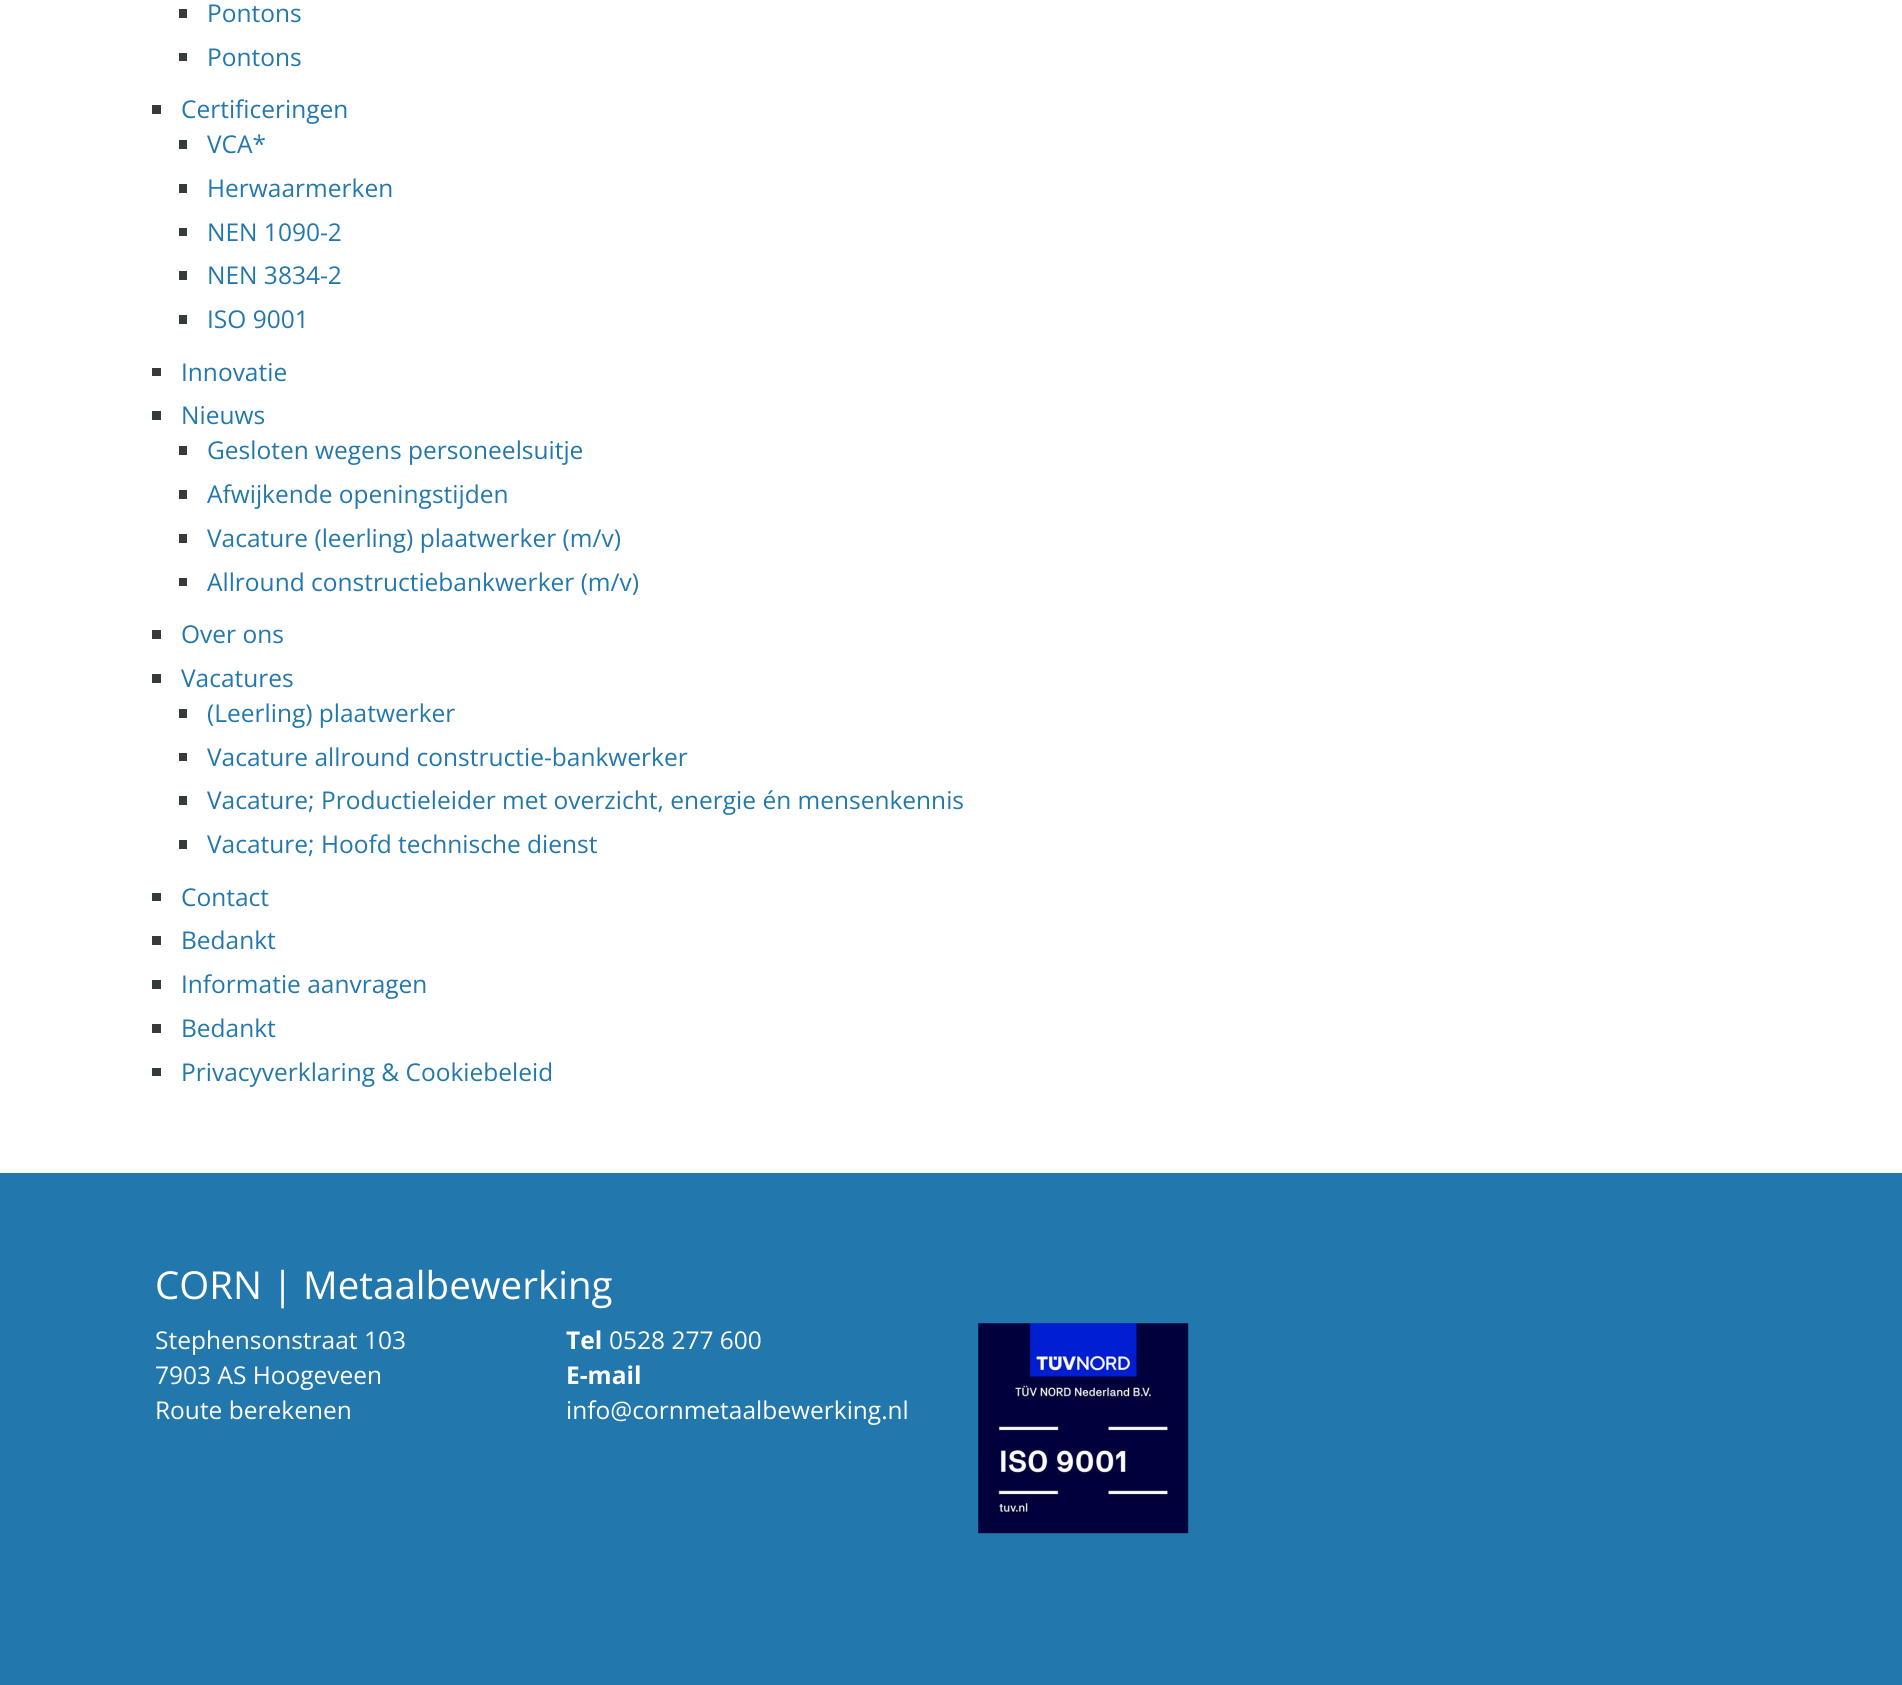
#include <cairo/cairo.h>
#include <math.h>
#include <stddef.h>


static void draw_image(cairo_t *cr, const char *path, double x, double y, double w, double h) {
  cairo_surface_t *image = cairo_image_surface_create_from_png(path);
  cairo_save(cr);
  cairo_set_source_surface(cr, image, x, y);
  cairo_rectangle(cr, x, y, w, h);
  cairo_fill(cr);
  cairo_restore(cr);
  cairo_surface_destroy(image);
}

static void draw(cairo_t *cr) {
  cairo_set_source_rgb(cr, 1, 1, 1);
  cairo_paint(cr);
  cairo_set_source_rgb(cr, 53 / 255.0, 59 / 255.0, 59 / 255.0);
  cairo_rectangle(cr, 179, 9, 8, 9);
  cairo_fill(cr);
  cairo_rectangle(cr, 179, 53, 8, 8);
  cairo_fill(cr);
  cairo_rectangle(cr, 152, 105, 9, 9);
  cairo_fill(cr);
  cairo_rectangle(cr, 179, 140, 8, 9);
  cairo_fill(cr);
  cairo_rectangle(cr, 179, 184, 8, 9);
  cairo_fill(cr);
  cairo_rectangle(cr, 179, 228, 8, 8);
  cairo_fill(cr);
  cairo_rectangle(cr, 179, 271, 8, 9);
  cairo_fill(cr);
  cairo_rectangle(cr, 179, 315, 8, 9);
  cairo_fill(cr);
  cairo_rectangle(cr, 152, 368, 9, 8);
  cairo_fill(cr);
  cairo_rectangle(cr, 152, 411, 9, 9);
  cairo_fill(cr);
  cairo_rectangle(cr, 179, 446, 8, 9);
  cairo_fill(cr);
  cairo_rectangle(cr, 179, 490, 8, 9);
  cairo_fill(cr);
  cairo_rectangle(cr, 179, 534, 8, 9);
  cairo_fill(cr);
  cairo_rectangle(cr, 179, 578, 8, 8);
  cairo_fill(cr);
  cairo_rectangle(cr, 152, 630, 9, 9);
  cairo_fill(cr);
  cairo_rectangle(cr, 152, 674, 9, 9);
  cairo_fill(cr);
  cairo_rectangle(cr, 179, 709, 8, 9);
  cairo_fill(cr);
  cairo_rectangle(cr, 179, 753, 8, 8);
  cairo_fill(cr);
  cairo_rectangle(cr, 179, 796, 8, 9);
  cairo_fill(cr);
  cairo_rectangle(cr, 179, 840, 8, 9);
  cairo_fill(cr);
  cairo_rectangle(cr, 152, 893, 9, 8);
  cairo_fill(cr);
  cairo_rectangle(cr, 152, 936, 9, 9);
  cairo_fill(cr);
  cairo_rectangle(cr, 152, 980, 9, 9);
  cairo_fill(cr);
  cairo_rectangle(cr, 152, 1024, 9, 9);
  cairo_fill(cr);
  cairo_rectangle(cr, 152, 1068, 9, 8);
  cairo_fill(cr);
  cairo_set_source_rgb(cr, 34 / 255.0, 119 / 255.0, 173 / 255.0);
  cairo_rectangle(cr, 0, 1173, 1902, 512);
  cairo_fill(cr);
  draw_image(cr, "images/1.png", 978, 1323, 211, 211);
  cairo_select_font_face(cr, "Open Sans", CAIRO_FONT_SLANT_NORMAL, CAIRO_FONT_WEIGHT_NORMAL);
  cairo_set_font_size(cr, 24.5);
  cairo_move_to(cr, 207, 22);
  cairo_show_text(cr, "Pontons");
  cairo_move_to(cr, 207, 66);
  cairo_show_text(cr, "Pontons");
  cairo_move_to(cr, 181, 118);
  cairo_show_text(cr, "Certificeringen");
  cairo_move_to(cr, 207, 153);
  cairo_show_text(cr, "VCA*");
  cairo_move_to(cr, 207, 197);
  cairo_show_text(cr, "Herwaarmerken");
  cairo_move_to(cr, 207, 241);
  cairo_show_text(cr, "NEN 1090-2");
  cairo_move_to(cr, 207, 284);
  cairo_show_text(cr, "NEN 3834-2");
  cairo_move_to(cr, 207, 328);
  cairo_show_text(cr, "ISO 9001");
  cairo_move_to(cr, 181, 381);
  cairo_show_text(cr, "Innovatie");
  cairo_move_to(cr, 181, 424);
  cairo_show_text(cr, "Nieuws");
  cairo_move_to(cr, 207, 459);
  cairo_show_text(cr, "Gesloten wegens personeelsuitje");
  cairo_move_to(cr, 207, 503);
  cairo_show_text(cr, "Afwijkende openingstijden");
  cairo_move_to(cr, 207, 547);
  cairo_show_text(cr, "Vacature (leerling) plaatwerker (m/v)");
  cairo_move_to(cr, 207, 591);
  cairo_show_text(cr, "Allround constructiebankwerker (m/v)");
  cairo_move_to(cr, 181, 643);
  cairo_show_text(cr, "Over ons");
  cairo_move_to(cr, 181, 687);
  cairo_show_text(cr, "Vacatures");
  cairo_move_to(cr, 207, 722);
  cairo_show_text(cr, "(Leerling) plaatwerker");
  cairo_move_to(cr, 207, 766);
  cairo_show_text(cr, "Vacature allround constructie-bankwerker");
  cairo_move_to(cr, 207, 809);
  cairo_show_text(cr, "Vacature; Productieleider met overzicht, energie én mensenkennis");
  cairo_move_to(cr, 207, 853);
  cairo_show_text(cr, "Vacature; Hoofd technische dienst");
  cairo_move_to(cr, 181, 906);
  cairo_show_text(cr, "Contact");
  cairo_move_to(cr, 181, 949);
  cairo_show_text(cr, "Bedankt");
  cairo_move_to(cr, 181, 993);
  cairo_show_text(cr, "Informatie aanvragen");
  cairo_move_to(cr, 181, 1037);
  cairo_show_text(cr, "Bedankt");
  cairo_move_to(cr, 181, 1081);
  cairo_show_text(cr, "Privacyverklaring & Cookiebeleid");
  cairo_set_font_size(cr, 38.5);
  cairo_set_source_rgb(cr, 1, 1, 1);
  cairo_move_to(cr, 155, 1299);
  cairo_show_text(cr, "CORN | Metaalbewerking");
  cairo_set_font_size(cr, 24.5);
  cairo_move_to(cr, 155, 1349);
  cairo_show_text(cr, "Stephensonstraat 103");
  cairo_move_to(cr, 155, 1384);
  cairo_show_text(cr, "7903 AS Hoogeveen");
  cairo_move_to(cr, 155, 1419);
  cairo_show_text(cr, "Route berekenen");
  cairo_select_font_face(cr, "Open Sans", CAIRO_FONT_SLANT_NORMAL, CAIRO_FONT_WEIGHT_BOLD);
  cairo_move_to(cr, 566, 1349);
  cairo_show_text(cr, "Tel");
  cairo_select_font_face(cr, "Open Sans", CAIRO_FONT_SLANT_NORMAL, CAIRO_FONT_WEIGHT_NORMAL);
  cairo_move_to(cr, 609, 1349);
  cairo_show_text(cr, "0528 277 600");
  cairo_select_font_face(cr, "Open Sans", CAIRO_FONT_SLANT_NORMAL, CAIRO_FONT_WEIGHT_BOLD);
  cairo_move_to(cr, 566, 1384);
  cairo_show_text(cr, "E-mail");
  cairo_select_font_face(cr, "Open Sans", CAIRO_FONT_SLANT_NORMAL, CAIRO_FONT_WEIGHT_NORMAL);
  cairo_move_to(cr, 566, 1419);
  cairo_show_text(cr, "info@cornmetaalbewerking.nl");
}

int main(void) {
  cairo_surface_t *surface = cairo_image_surface_create(CAIRO_FORMAT_RGB24, 1902, 1685);
  cairo_t *cr = cairo_create(surface);
  cairo_font_options_t *options = cairo_font_options_create();
  cairo_font_options_set_hint_metrics(options, CAIRO_HINT_METRICS_OFF);
  cairo_font_options_set_hint_style(options, CAIRO_HINT_STYLE_NONE);
  cairo_set_font_options(cr, options);
  cairo_set_miter_limit(cr, 4);
  draw(cr);
  cairo_surface_write_to_png(surface, "out.png");
  cairo_font_options_destroy(options);
  cairo_destroy(cr);
  cairo_surface_destroy(surface);
  return 0;
}
